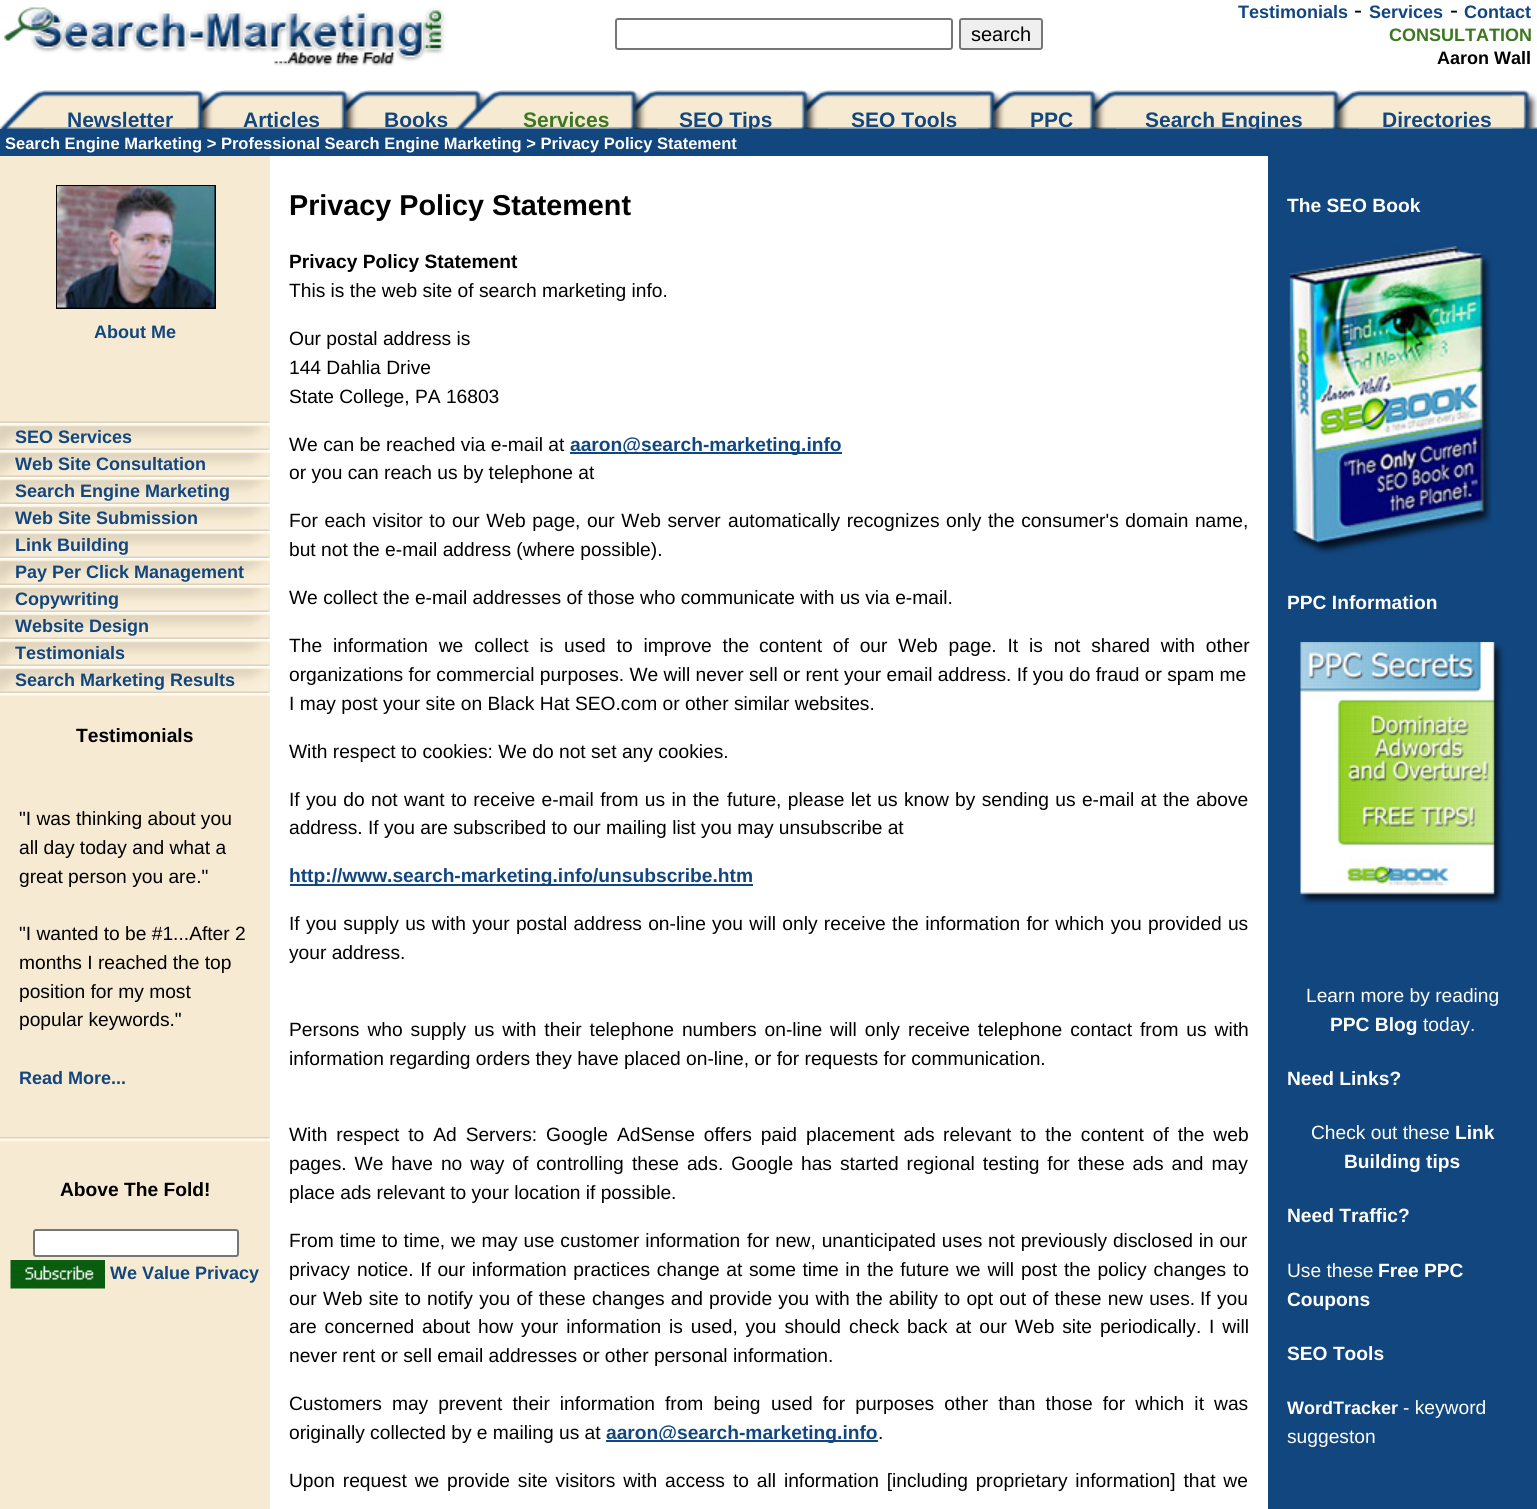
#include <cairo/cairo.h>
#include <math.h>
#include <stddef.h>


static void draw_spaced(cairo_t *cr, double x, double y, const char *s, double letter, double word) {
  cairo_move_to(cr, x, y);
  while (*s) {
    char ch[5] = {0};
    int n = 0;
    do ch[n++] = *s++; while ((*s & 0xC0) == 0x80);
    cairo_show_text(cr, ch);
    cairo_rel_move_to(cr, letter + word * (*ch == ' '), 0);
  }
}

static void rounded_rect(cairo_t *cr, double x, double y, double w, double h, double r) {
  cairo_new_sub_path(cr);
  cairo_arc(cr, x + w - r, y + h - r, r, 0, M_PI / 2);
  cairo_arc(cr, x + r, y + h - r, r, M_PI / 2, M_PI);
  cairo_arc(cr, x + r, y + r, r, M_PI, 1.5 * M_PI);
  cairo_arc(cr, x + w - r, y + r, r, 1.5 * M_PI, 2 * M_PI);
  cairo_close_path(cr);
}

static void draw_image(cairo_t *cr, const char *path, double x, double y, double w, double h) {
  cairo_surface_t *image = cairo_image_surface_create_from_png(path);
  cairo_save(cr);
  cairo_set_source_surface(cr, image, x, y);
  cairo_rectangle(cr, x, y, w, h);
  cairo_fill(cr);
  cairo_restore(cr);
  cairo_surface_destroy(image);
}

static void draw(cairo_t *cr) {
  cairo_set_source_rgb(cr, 1, 1, 1);
  cairo_paint(cr);
  draw_image(cr, "images/1.png", 4, 7, 442, 59);
  rounded_rect(cr, 616, 19, 336, 30, 2);
  cairo_set_source_rgb(cr, 118 / 255.0, 118 / 255.0, 118 / 255.0);
  cairo_stroke(cr);
  cairo_set_source_rgb(cr, 239 / 255.0, 239 / 255.0, 239 / 255.0);
  rounded_rect(cr, 960, 19, 82, 30, 2);
  cairo_fill_preserve(cr);
  cairo_set_source_rgb(cr, 118 / 255.0, 118 / 255.0, 118 / 255.0);
  cairo_stroke(cr);
  draw_image(cr, "images/2.png", 43, 90, 1469, 39);
  draw_image(cr, "images/3.png", 0, 90, 44, 39);
  draw_image(cr, "images/4.png", 186, 90, 38, 39);
  draw_image(cr, "images/5.png", 330, 90, 38, 39);
  draw_image(cr, "images/6.png", 456, 90, 45, 39);
  draw_image(cr, "images/7.png", 619, 90, 38, 39);
  draw_image(cr, "images/8.png", 790, 90, 38, 39);
  draw_image(cr, "images/4.png", 978, 90, 38, 39);
  draw_image(cr, "images/8.png", 1078, 90, 38, 39);
  draw_image(cr, "images/7.png", 1321, 90, 38, 39);
  draw_image(cr, "images/9.png", 1512, 90, 25, 39);
  cairo_set_source_rgb(cr, 18 / 255.0, 70 / 255.0, 126 / 255.0);
  cairo_rectangle(cr, 0, 129, 1537, 27);
  cairo_fill(cr);
  cairo_set_source_rgb(cr, 246 / 255.0, 234 / 255.0, 210 / 255.0);
  cairo_rectangle(cr, 0, 156, 270, 1353);
  cairo_fill(cr);
  cairo_set_source_rgb(cr, 18 / 255.0, 70 / 255.0, 126 / 255.0);
  cairo_rectangle(cr, 1268, 156, 269, 1353);
  cairo_fill(cr);
  cairo_rectangle(cr, 57, 186, 158, 122);
  cairo_set_source_rgb(cr, 0, 0, 0);
  cairo_stroke(cr);
  draw_image(cr, "images/10.png", 57, 186, 158, 122);
  draw_image(cr, "images/11.png", 0, 421, 270, 2);
  draw_image(cr, "images/12.png", 0, 423, 270, 27);
  draw_image(cr, "images/12.png", 0, 450, 270, 27);
  draw_image(cr, "images/12.png", 0, 477, 270, 27);
  draw_image(cr, "images/12.png", 0, 504, 270, 27);
  draw_image(cr, "images/12.png", 0, 531, 270, 27);
  draw_image(cr, "images/12.png", 0, 558, 270, 27);
  draw_image(cr, "images/12.png", 0, 585, 270, 27);
  draw_image(cr, "images/12.png", 0, 612, 270, 27);
  draw_image(cr, "images/12.png", 0, 639, 270, 27);
  draw_image(cr, "images/12.png", 0, 666, 270, 27);
  draw_image(cr, "images/13.png", 0, 693, 270, 3);
  draw_image(cr, "images/14.png", 0, 1137, 270, 5);
  cairo_set_source_rgb(cr, 1, 1, 1);
  rounded_rect(cr, 34, 1230, 204, 26, 2);
  cairo_fill_preserve(cr);
  cairo_set_source_rgb(cr, 118 / 255.0, 118 / 255.0, 118 / 255.0);
  cairo_stroke(cr);
  draw_image(cr, "images/15.png", 10, 1260, 95, 29);
  cairo_set_source_rgb(cr, 18 / 255.0, 70 / 255.0, 126 / 255.0);
  cairo_rectangle(cr, 570, 452, 272, 2);
  cairo_fill(cr);
  cairo_rectangle(cr, 290, 884, 463, 2);
  cairo_fill(cr);
  cairo_rectangle(cr, 606, 1440, 272, 2);
  cairo_fill(cr);
  draw_image(cr, "images/16.png", 1287, 246, 205, 309);
  draw_image(cr, "images/17.png", 1300, 642, 205, 263);
  cairo_select_font_face(cr, "Liberation Sans", CAIRO_FONT_SLANT_NORMAL, CAIRO_FONT_WEIGHT_NORMAL);
  cairo_set_font_size(cr, 20);
  cairo_set_source_rgb(cr, 0, 0, 0);
  cairo_move_to(cr, 971, 41);
  cairo_show_text(cr, "search");
  cairo_select_font_face(cr, "Liberation Sans", CAIRO_FONT_SLANT_NORMAL, CAIRO_FONT_WEIGHT_BOLD);
  cairo_set_font_size(cr, 18);
  cairo_set_source_rgb(cr, 18 / 255.0, 70 / 255.0, 126 / 255.0);
  cairo_move_to(cr, 1238, 18);
  cairo_show_text(cr, "Testimonials");
  cairo_select_font_face(cr, "Liberation Sans", CAIRO_FONT_SLANT_NORMAL, CAIRO_FONT_WEIGHT_NORMAL);
  cairo_set_font_size(cr, 24);
  cairo_set_source_rgb(cr, 0, 0, 0);
  cairo_move_to(cr, 1354, 18);
  cairo_show_text(cr, "-");
  cairo_select_font_face(cr, "Liberation Sans", CAIRO_FONT_SLANT_NORMAL, CAIRO_FONT_WEIGHT_BOLD);
  cairo_set_font_size(cr, 18);
  cairo_set_source_rgb(cr, 18 / 255.0, 70 / 255.0, 126 / 255.0);
  cairo_move_to(cr, 1369, 18);
  cairo_show_text(cr, "Services");
  cairo_select_font_face(cr, "Liberation Sans", CAIRO_FONT_SLANT_NORMAL, CAIRO_FONT_WEIGHT_NORMAL);
  cairo_set_font_size(cr, 24);
  cairo_set_source_rgb(cr, 0, 0, 0);
  cairo_move_to(cr, 1450, 18);
  cairo_show_text(cr, "-");
  cairo_select_font_face(cr, "Liberation Sans", CAIRO_FONT_SLANT_NORMAL, CAIRO_FONT_WEIGHT_BOLD);
  cairo_set_font_size(cr, 18);
  cairo_set_source_rgb(cr, 18 / 255.0, 70 / 255.0, 126 / 255.0);
  cairo_move_to(cr, 1464, 18);
  cairo_show_text(cr, "Contact");
  cairo_set_source_rgb(cr, 60 / 255.0, 120 / 255.0, 32 / 255.0);
  cairo_move_to(cr, 1389, 41);
  cairo_show_text(cr, "CONSULTATION");
  cairo_set_source_rgb(cr, 0, 0, 0);
  cairo_move_to(cr, 1437, 64);
  cairo_show_text(cr, "Aaron Wall");
  cairo_set_font_size(cr, 21);
  cairo_set_source_rgb(cr, 18 / 255.0, 70 / 255.0, 126 / 255.0);
  cairo_move_to(cr, 67, 127);
  cairo_show_text(cr, "Newsletter");
  cairo_move_to(cr, 243, 127);
  cairo_show_text(cr, "Articles");
  cairo_move_to(cr, 384, 127);
  cairo_show_text(cr, "Books");
  cairo_set_source_rgb(cr, 60 / 255.0, 120 / 255.0, 32 / 255.0);
  cairo_move_to(cr, 523, 127);
  cairo_show_text(cr, "Services");
  cairo_set_source_rgb(cr, 18 / 255.0, 70 / 255.0, 126 / 255.0);
  cairo_move_to(cr, 679, 127);
  cairo_show_text(cr, "SEO Tips");
  cairo_move_to(cr, 851, 127);
  cairo_show_text(cr, "SEO Tools");
  cairo_move_to(cr, 1030, 127);
  cairo_show_text(cr, "PPC");
  cairo_move_to(cr, 1145, 127);
  cairo_show_text(cr, "Search Engines");
  cairo_move_to(cr, 1382, 127);
  cairo_show_text(cr, "Directories");
  cairo_set_font_size(cr, 16.5);
  cairo_set_source_rgb(cr, 1, 1, 1);
  cairo_move_to(cr, 5, 149);
  cairo_show_text(cr, "Search Engine Marketing > Professional Search Engine Marketing > Privacy Policy Statement");
  cairo_set_font_size(cr, 18);
  cairo_set_source_rgb(cr, 18 / 255.0, 70 / 255.0, 126 / 255.0);
  cairo_move_to(cr, 94, 338);
  cairo_show_text(cr, "About Me");
  cairo_move_to(cr, 15, 443);
  cairo_show_text(cr, "SEO Services");
  cairo_move_to(cr, 15, 470);
  cairo_show_text(cr, "Web Site Consultation");
  cairo_move_to(cr, 15, 497);
  cairo_show_text(cr, "Search Engine Marketing");
  cairo_move_to(cr, 15, 524);
  cairo_show_text(cr, "Web Site Submission");
  cairo_move_to(cr, 15, 551);
  cairo_show_text(cr, "Link Building");
  cairo_move_to(cr, 15, 578);
  cairo_show_text(cr, "Pay Per Click Management");
  cairo_move_to(cr, 15, 605);
  cairo_show_text(cr, "Copywriting");
  cairo_move_to(cr, 15, 632);
  cairo_show_text(cr, "Website Design");
  cairo_move_to(cr, 15, 659);
  cairo_show_text(cr, "Testimonials");
  cairo_move_to(cr, 15, 686);
  cairo_show_text(cr, "Search Marketing Results");
  cairo_set_font_size(cr, 19.2);
  cairo_set_source_rgb(cr, 0, 0, 0);
  cairo_move_to(cr, 76, 742);
  cairo_show_text(cr, "Testimonials");
  cairo_select_font_face(cr, "Liberation Sans", CAIRO_FONT_SLANT_NORMAL, CAIRO_FONT_WEIGHT_NORMAL);
  cairo_move_to(cr, 19, 825);
  cairo_show_text(cr, "\"I was thinking about you");
  cairo_move_to(cr, 19, 854);
  cairo_show_text(cr, "all day today and what a");
  cairo_move_to(cr, 19, 883);
  cairo_show_text(cr, "great person you are.\"");
  cairo_move_to(cr, 19, 940);
  cairo_show_text(cr, "\"I wanted to be #1...After 2");
  cairo_move_to(cr, 19, 969);
  cairo_show_text(cr, "months I reached the top");
  cairo_move_to(cr, 19, 998);
  cairo_show_text(cr, "position for my most");
  cairo_move_to(cr, 19, 1026);
  cairo_show_text(cr, "popular keywords.\"");
  cairo_select_font_face(cr, "Liberation Sans", CAIRO_FONT_SLANT_NORMAL, CAIRO_FONT_WEIGHT_BOLD);
  cairo_set_font_size(cr, 18);
  cairo_set_source_rgb(cr, 18 / 255.0, 70 / 255.0, 126 / 255.0);
  cairo_move_to(cr, 19, 1084);
  cairo_show_text(cr, "Read More...");
  cairo_set_font_size(cr, 19.2);
  cairo_set_source_rgb(cr, 0, 0, 0);
  cairo_move_to(cr, 60, 1196);
  cairo_show_text(cr, "Above The Fold!");
  cairo_set_font_size(cr, 18);
  cairo_set_source_rgb(cr, 18 / 255.0, 70 / 255.0, 126 / 255.0);
  cairo_move_to(cr, 110, 1279);
  cairo_show_text(cr, "We Value Privacy");
  cairo_set_font_size(cr, 28.75);
  cairo_set_source_rgb(cr, 0, 0, 0);
  cairo_move_to(cr, 289, 215);
  cairo_show_text(cr, "Privacy Policy Statement");
  cairo_set_font_size(cr, 19.2);
  cairo_move_to(cr, 289, 268);
  cairo_show_text(cr, "Privacy Policy Statement");
  cairo_select_font_face(cr, "Liberation Sans", CAIRO_FONT_SLANT_NORMAL, CAIRO_FONT_WEIGHT_NORMAL);
  cairo_move_to(cr, 289, 297);
  cairo_show_text(cr, "This is the web site of search marketing info.");
  cairo_move_to(cr, 289, 345);
  cairo_show_text(cr, "Our postal address is");
  cairo_move_to(cr, 289, 374);
  cairo_show_text(cr, "144 Dahlia Drive");
  cairo_move_to(cr, 289, 403);
  cairo_show_text(cr, "State College, PA 16803");
  cairo_move_to(cr, 289, 451);
  cairo_show_text(cr, "We can be reached via e-mail at");
  cairo_select_font_face(cr, "Liberation Sans", CAIRO_FONT_SLANT_NORMAL, CAIRO_FONT_WEIGHT_BOLD);
  cairo_set_source_rgb(cr, 18 / 255.0, 70 / 255.0, 126 / 255.0);
  cairo_move_to(cr, 570, 451);
  cairo_show_text(cr, "aaron@search-marketing.info");
  cairo_select_font_face(cr, "Liberation Sans", CAIRO_FONT_SLANT_NORMAL, CAIRO_FONT_WEIGHT_NORMAL);
  cairo_set_source_rgb(cr, 0, 0, 0);
  cairo_move_to(cr, 289, 479);
  cairo_show_text(cr, "or you can reach us by telephone at");
  draw_spaced(cr, 289, 527, "For each visitor to our Web page, our Web server", 0, 1.25);
  draw_spaced(cr, 728, 527, "automatically recognizes only the consumer's domain name,", 0, 1.25);
  cairo_move_to(cr, 289, 556);
  cairo_show_text(cr, "but not the e-mail address (where possible).");
  cairo_move_to(cr, 289, 604);
  cairo_show_text(cr, "We collect the e-mail addresses of those who communicate with us via e-mail.");
  draw_spaced(cr, 289, 652, "The information we collect is used to improve the", 0, 5.5);
  draw_spaced(cr, 759, 652, "content of our Web page. It is not shared with other", 0, 5.5);
  cairo_move_to(cr, 289, 681);
  cairo_show_text(cr, "organizations for commercial purposes. We will never sell or rent your email address. If you do fraud or spam me");
  cairo_move_to(cr, 289, 710);
  cairo_show_text(cr, "I may post your site on Black Hat SEO.com or other similar websites.");
  cairo_move_to(cr, 289, 758);
  cairo_show_text(cr, "With respect to cookies: We do not set any cookies.");
  draw_spaced(cr, 289, 806, "If you do not want to receive e-mail from us in the", 0, 1);
  draw_spaced(cr, 727, 806, "future, please let us know by sending us e-mail at the above", 0, 1);
  cairo_move_to(cr, 289, 834);
  cairo_show_text(cr, "address. If you are subscribed to our mailing list you may unsubscribe at");
  cairo_select_font_face(cr, "Liberation Sans", CAIRO_FONT_SLANT_NORMAL, CAIRO_FONT_WEIGHT_BOLD);
  cairo_set_source_rgb(cr, 18 / 255.0, 70 / 255.0, 126 / 255.0);
  cairo_move_to(cr, 289, 882);
  cairo_show_text(cr, "http://www.search-marketing.info/unsubscribe.htm");
  cairo_select_font_face(cr, "Liberation Sans", CAIRO_FONT_SLANT_NORMAL, CAIRO_FONT_WEIGHT_NORMAL);
  cairo_set_source_rgb(cr, 0, 0, 0);
  draw_spaced(cr, 289, 930, "If you supply us with your postal address on-line", 0, 1);
  draw_spaced(cr, 712, 930, "you will only receive the information for which you provided us", 0, 1);
  cairo_move_to(cr, 289, 959);
  cairo_show_text(cr, "your address.");
  draw_spaced(cr, 289, 1036, "Persons who supply us with their telephone numbers on-line will only", 0, 2.6);
  draw_spaced(cr, 908, 1036, "receive telephone contact from us with", 0, 2.6);
  cairo_move_to(cr, 289, 1065);
  cairo_show_text(cr, "information regarding orders they have placed on-line, or for requests for communication.");
  draw_spaced(cr, 289, 1141, "With respect to Ad Servers: Google AdSense offers paid placement ads", 0, 3.6);
  draw_spaced(cr, 943, 1141, "relevant to the content of the web", 0, 3.6);
  draw_spaced(cr, 289, 1170, "pages. We have no way of controlling", 0, 2.6);
  draw_spaced(cr, 632, 1170, "these ads. Google has started regional testing for these ads and may", 0, 2.6);
  cairo_move_to(cr, 289, 1199);
  cairo_show_text(cr, "place ads relevant to your location if possible.");
  draw_spaced(cr, 289, 1247, "From time to time, we may use customer information", 0, 0.5);
  draw_spaced(cr, 747, 1247, "for new, unanticipated uses not previously disclosed in our", 0, 0.5);
  cairo_move_to(cr, 289, 1276);
  cairo_show_text(cr, "privacy");
  draw_spaced(cr, 357, 1276, "notice. If our information practices change at some time in the future", 0, 1.25);
  draw_spaced(cr, 956, 1276, "we will post the policy changes to", 0, 1.5);
  draw_spaced(cr, 289, 1305, "our Web site to notify you of these", 0, 0.9);
  draw_spaced(cr, 592, 1305, "changes and provide you with the ability to opt out of these new uses.", 0, 0.9);
  draw_spaced(cr, 1200, 1305, "If you", 0, 1);
  draw_spaced(cr, 289, 1333, "are concerned about how your information is used, you should", 0, 2.5);
  draw_spaced(cr, 849, 1333, "check back at our Web site periodically. I will", 0, 2.5);
  cairo_move_to(cr, 289, 1362);
  cairo_show_text(cr, "never rent or sell email addresses or other personal information.");
  draw_spaced(cr, 289, 1410, "Customers may prevent their information from being", 0, 4.75);
  draw_spaced(cr, 771, 1410, "used for purposes other than those for which it was", 0, 4.75);
  cairo_move_to(cr, 289, 1439);
  cairo_show_text(cr, "originally collected by e mailing us at");
  cairo_select_font_face(cr, "Liberation Sans", CAIRO_FONT_SLANT_NORMAL, CAIRO_FONT_WEIGHT_BOLD);
  cairo_set_source_rgb(cr, 18 / 255.0, 70 / 255.0, 126 / 255.0);
  cairo_move_to(cr, 606, 1439);
  cairo_show_text(cr, "aaron@search-marketing.info");
  cairo_select_font_face(cr, "Liberation Sans", CAIRO_FONT_SLANT_NORMAL, CAIRO_FONT_WEIGHT_NORMAL);
  cairo_set_source_rgb(cr, 0, 0, 0);
  cairo_move_to(cr, 878, 1439);
  cairo_show_text(cr, ".");
  draw_spaced(cr, 289, 1487, "Upon request we provide site visitors with access", 0, 2.5);
  draw_spaced(cr, 733, 1487, "to all information [including proprietary information] that we", 0, 2.5);
  cairo_select_font_face(cr, "Liberation Sans", CAIRO_FONT_SLANT_NORMAL, CAIRO_FONT_WEIGHT_BOLD);
  cairo_set_source_rgb(cr, 1, 1, 1);
  cairo_move_to(cr, 1287, 212);
  cairo_show_text(cr, "The SEO Book");
  cairo_move_to(cr, 1287, 609);
  cairo_show_text(cr, "PPC Information");
  cairo_select_font_face(cr, "Liberation Sans", CAIRO_FONT_SLANT_NORMAL, CAIRO_FONT_WEIGHT_NORMAL);
  cairo_move_to(cr, 1306, 1002);
  cairo_show_text(cr, "Learn more by reading");
  cairo_select_font_face(cr, "Liberation Sans", CAIRO_FONT_SLANT_NORMAL, CAIRO_FONT_WEIGHT_BOLD);
  cairo_move_to(cr, 1330, 1031);
  cairo_show_text(cr, "PPC Blog");
  cairo_select_font_face(cr, "Liberation Sans", CAIRO_FONT_SLANT_NORMAL, CAIRO_FONT_WEIGHT_NORMAL);
  cairo_move_to(cr, 1423, 1031);
  cairo_show_text(cr, "today.");
  cairo_select_font_face(cr, "Liberation Sans", CAIRO_FONT_SLANT_NORMAL, CAIRO_FONT_WEIGHT_BOLD);
  cairo_move_to(cr, 1287, 1085);
  cairo_show_text(cr, "Need Links?");
  cairo_select_font_face(cr, "Liberation Sans", CAIRO_FONT_SLANT_NORMAL, CAIRO_FONT_WEIGHT_NORMAL);
  cairo_move_to(cr, 1311, 1139);
  cairo_show_text(cr, "Check out these");
  cairo_select_font_face(cr, "Liberation Sans", CAIRO_FONT_SLANT_NORMAL, CAIRO_FONT_WEIGHT_BOLD);
  cairo_move_to(cr, 1455, 1139);
  cairo_show_text(cr, "Link");
  cairo_move_to(cr, 1344, 1168);
  cairo_show_text(cr, "Building tips");
  cairo_move_to(cr, 1287, 1222);
  cairo_show_text(cr, "Need Traffic?");
  cairo_select_font_face(cr, "Liberation Sans", CAIRO_FONT_SLANT_NORMAL, CAIRO_FONT_WEIGHT_NORMAL);
  cairo_move_to(cr, 1287, 1277);
  cairo_show_text(cr, "Use these");
  cairo_select_font_face(cr, "Liberation Sans", CAIRO_FONT_SLANT_NORMAL, CAIRO_FONT_WEIGHT_BOLD);
  cairo_move_to(cr, 1378, 1277);
  cairo_show_text(cr, "Free PPC");
  cairo_move_to(cr, 1287, 1306);
  cairo_show_text(cr, "Coupons");
  cairo_move_to(cr, 1287, 1360);
  cairo_show_text(cr, "SEO Tools");
  cairo_set_font_size(cr, 18);
  cairo_move_to(cr, 1287, 1414);
  cairo_show_text(cr, "WordTracker");
  cairo_select_font_face(cr, "Liberation Sans", CAIRO_FONT_SLANT_NORMAL, CAIRO_FONT_WEIGHT_NORMAL);
  cairo_set_font_size(cr, 19.2);
  cairo_move_to(cr, 1403, 1414);
  cairo_show_text(cr, "- keyword");
  cairo_move_to(cr, 1287, 1443);
  cairo_show_text(cr, "suggeston");
}

int main(void) {
  cairo_surface_t *surface = cairo_image_surface_create(CAIRO_FORMAT_RGB24, 1537, 1509);
  cairo_t *cr = cairo_create(surface);
  cairo_font_options_t *options = cairo_font_options_create();
  cairo_font_options_set_hint_metrics(options, CAIRO_HINT_METRICS_OFF);
  cairo_font_options_set_hint_style(options, CAIRO_HINT_STYLE_NONE);
  cairo_set_font_options(cr, options);
  cairo_set_miter_limit(cr, 4);
  draw(cr);
  cairo_surface_write_to_png(surface, "out.png");
  cairo_font_options_destroy(options);
  cairo_destroy(cr);
  cairo_surface_destroy(surface);
  return 0;
}
